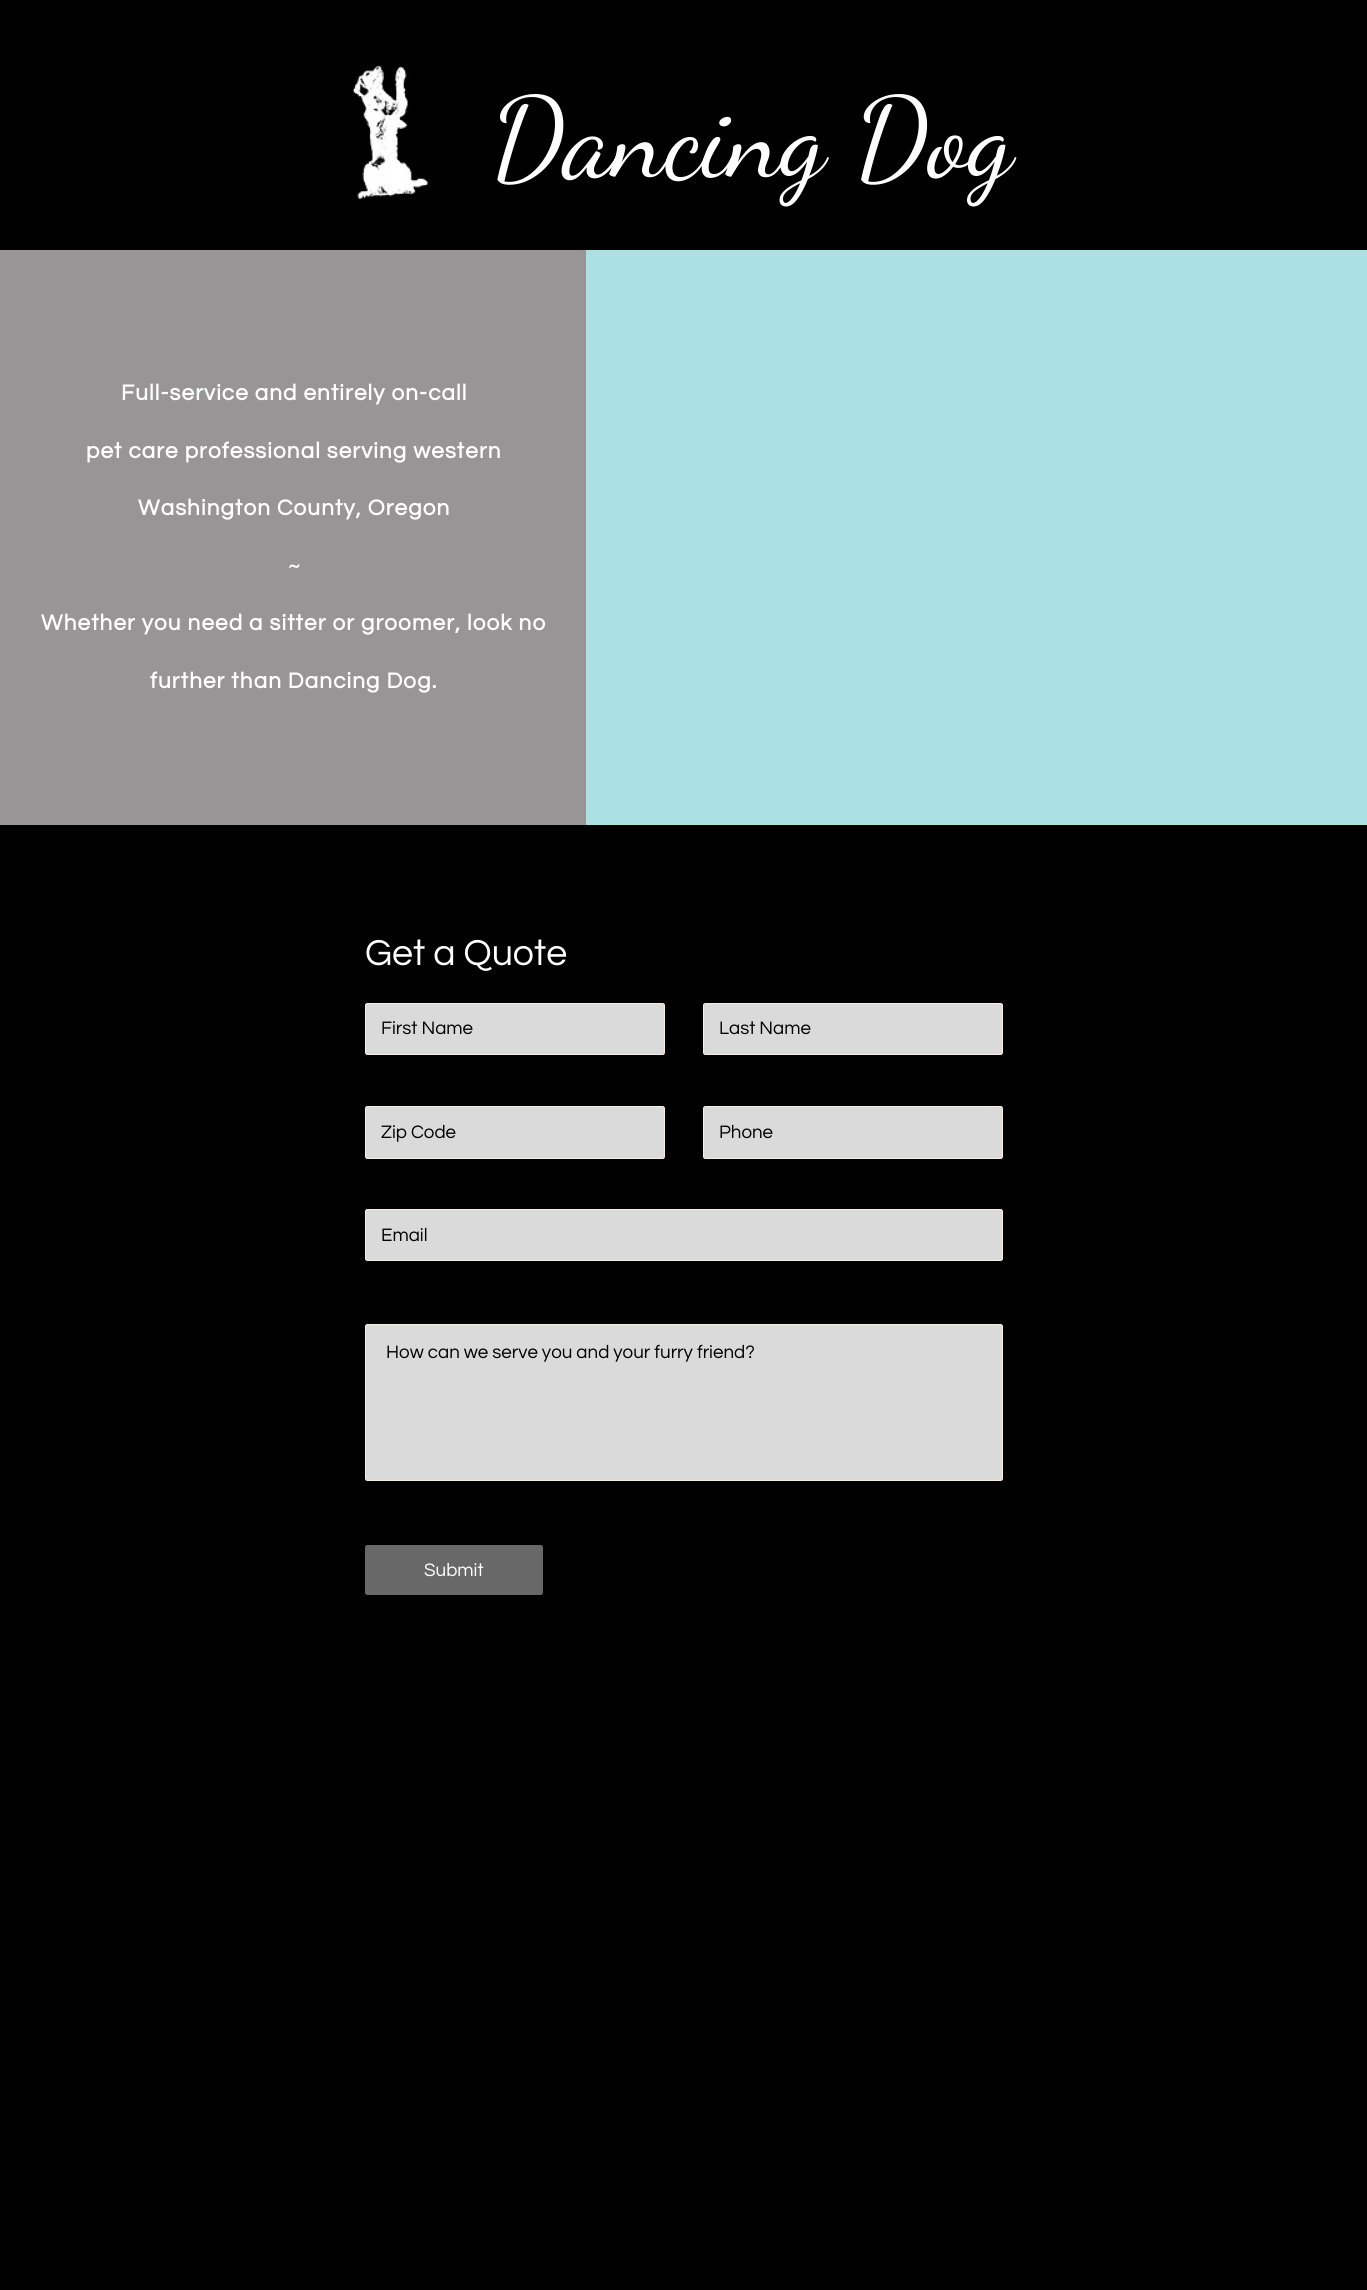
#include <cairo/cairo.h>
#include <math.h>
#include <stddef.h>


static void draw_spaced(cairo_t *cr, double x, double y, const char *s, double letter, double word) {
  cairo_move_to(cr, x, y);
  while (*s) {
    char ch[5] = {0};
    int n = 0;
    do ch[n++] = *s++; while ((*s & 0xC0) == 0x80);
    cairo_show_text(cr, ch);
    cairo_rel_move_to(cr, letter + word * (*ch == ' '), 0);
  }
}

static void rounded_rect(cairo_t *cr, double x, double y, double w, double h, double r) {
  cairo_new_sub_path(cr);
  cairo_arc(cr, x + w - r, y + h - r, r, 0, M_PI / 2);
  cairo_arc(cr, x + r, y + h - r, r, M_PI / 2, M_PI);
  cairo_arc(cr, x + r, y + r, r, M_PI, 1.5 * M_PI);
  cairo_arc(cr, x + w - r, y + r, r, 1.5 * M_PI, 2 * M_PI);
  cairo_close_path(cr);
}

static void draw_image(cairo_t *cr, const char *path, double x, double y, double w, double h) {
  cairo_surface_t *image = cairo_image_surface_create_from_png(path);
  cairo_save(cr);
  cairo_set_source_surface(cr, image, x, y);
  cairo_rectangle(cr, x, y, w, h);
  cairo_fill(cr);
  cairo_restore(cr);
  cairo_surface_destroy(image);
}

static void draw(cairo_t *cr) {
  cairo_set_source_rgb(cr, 0, 0, 0);
  cairo_paint(cr);
  draw_image(cr, "images/1.png", 352, 65, 76, 134);
  cairo_set_source_rgb(cr, 151 / 255.0, 149 / 255.0, 149 / 255.0);
  cairo_rectangle(cr, 0, 250, 586, 575);
  cairo_fill(cr);
  cairo_set_source_rgb(cr, 172 / 255.0, 225 / 255.0, 227 / 255.0);
  cairo_rectangle(cr, 586, 250, 781, 575);
  cairo_fill(cr);
  cairo_set_source_rgb(cr, 218 / 255.0, 218 / 255.0, 218 / 255.0);
  rounded_rect(cr, 365.5, 1003.5, 299, 51, 2);
  cairo_fill_preserve(cr);
  cairo_set_source_rgb(cr, 249 / 255.0, 237 / 255.0, 224 / 255.0);
  cairo_set_line_width(cr, 1);
  cairo_stroke(cr);
  cairo_set_source_rgb(cr, 218 / 255.0, 218 / 255.0, 218 / 255.0);
  rounded_rect(cr, 703.5, 1003.5, 299, 51, 2);
  cairo_fill_preserve(cr);
  cairo_set_source_rgb(cr, 249 / 255.0, 237 / 255.0, 224 / 255.0);
  cairo_stroke(cr);
  cairo_set_source_rgb(cr, 218 / 255.0, 218 / 255.0, 218 / 255.0);
  rounded_rect(cr, 365.5, 1106.5, 299, 52, 2);
  cairo_fill_preserve(cr);
  cairo_set_source_rgb(cr, 249 / 255.0, 237 / 255.0, 224 / 255.0);
  cairo_stroke(cr);
  cairo_set_source_rgb(cr, 218 / 255.0, 218 / 255.0, 218 / 255.0);
  rounded_rect(cr, 703.5, 1106.5, 299, 52, 2);
  cairo_fill_preserve(cr);
  cairo_set_source_rgb(cr, 249 / 255.0, 237 / 255.0, 224 / 255.0);
  cairo_stroke(cr);
  cairo_set_source_rgb(cr, 218 / 255.0, 218 / 255.0, 218 / 255.0);
  rounded_rect(cr, 365.5, 1209.5, 637, 51, 2);
  cairo_fill_preserve(cr);
  cairo_set_source_rgb(cr, 249 / 255.0, 237 / 255.0, 224 / 255.0);
  cairo_stroke(cr);
  cairo_set_source_rgb(cr, 218 / 255.0, 218 / 255.0, 218 / 255.0);
  rounded_rect(cr, 365.5, 1324.5, 637, 156, 2);
  cairo_fill_preserve(cr);
  cairo_set_source_rgb(cr, 249 / 255.0, 237 / 255.0, 224 / 255.0);
  cairo_stroke(cr);
  cairo_set_source_rgb(cr, 104 / 255.0, 104 / 255.0, 104 / 255.0);
  rounded_rect(cr, 365, 1545, 178, 50, 2.5);
  cairo_fill(cr);
  cairo_select_font_face(cr, "Dancing Script", CAIRO_FONT_SLANT_NORMAL, CAIRO_FONT_WEIGHT_NORMAL);
  cairo_set_font_size(cr, 112.5);
  cairo_set_source_rgb(cr, 1, 1, 1);
  cairo_move_to(cr, 491, 175);
  cairo_show_text(cr, "Dancing Dog");
  cairo_select_font_face(cr, "Questrial", CAIRO_FONT_SLANT_NORMAL, CAIRO_FONT_WEIGHT_BOLD);
  cairo_set_font_size(cr, 22.5);
  draw_spaced(cr, 121, 400, "Full-service and entirely on-call", 1.1, 0);
  draw_spaced(cr, 86, 458, "pet care professional serving western", 1.1, 0);
  draw_spaced(cr, 138, 515, "Washington County, Oregon", 1.1, 0);
  draw_spaced(cr, 288, 573, "~", 1.1, 0);
  draw_spaced(cr, 41, 630, "Whether you need a sitter or groomer, look no", 1.1, 0);
  draw_spaced(cr, 150, 688, "further than Dancing Dog.", 1.1, 0);
  cairo_select_font_face(cr, "Questrial", CAIRO_FONT_SLANT_NORMAL, CAIRO_FONT_WEIGHT_NORMAL);
  cairo_set_font_size(cr, 37.5);
  cairo_move_to(cr, 365, 965);
  cairo_show_text(cr, "Get a Quote");
  cairo_set_font_size(cr, 18.75);
  cairo_set_source_rgb(cr, 0, 0, 0);
  cairo_move_to(cr, 381, 1034);
  cairo_show_text(cr, "First Name");
  cairo_move_to(cr, 719, 1034);
  cairo_show_text(cr, "Last Name");
  cairo_move_to(cr, 381, 1138);
  cairo_show_text(cr, "Zip Code");
  cairo_move_to(cr, 719, 1138);
  cairo_show_text(cr, "Phone");
  cairo_move_to(cr, 381, 1241);
  cairo_show_text(cr, "Email");
  cairo_move_to(cr, 386, 1358);
  cairo_show_text(cr, "How can we serve you and your furry friend?");
  cairo_set_source_rgb(cr, 1, 1, 1);
  cairo_move_to(cr, 424, 1576);
  cairo_show_text(cr, "Submit");
}

int main(void) {
  cairo_surface_t *surface = cairo_image_surface_create(CAIRO_FORMAT_RGB24, 1367, 2290);
  cairo_t *cr = cairo_create(surface);
  cairo_font_options_t *options = cairo_font_options_create();
  cairo_font_options_set_hint_metrics(options, CAIRO_HINT_METRICS_OFF);
  cairo_font_options_set_hint_style(options, CAIRO_HINT_STYLE_NONE);
  cairo_set_font_options(cr, options);
  cairo_set_miter_limit(cr, 4);
  draw(cr);
  cairo_surface_write_to_png(surface, "out.png");
  cairo_font_options_destroy(options);
  cairo_destroy(cr);
  cairo_surface_destroy(surface);
  return 0;
}
